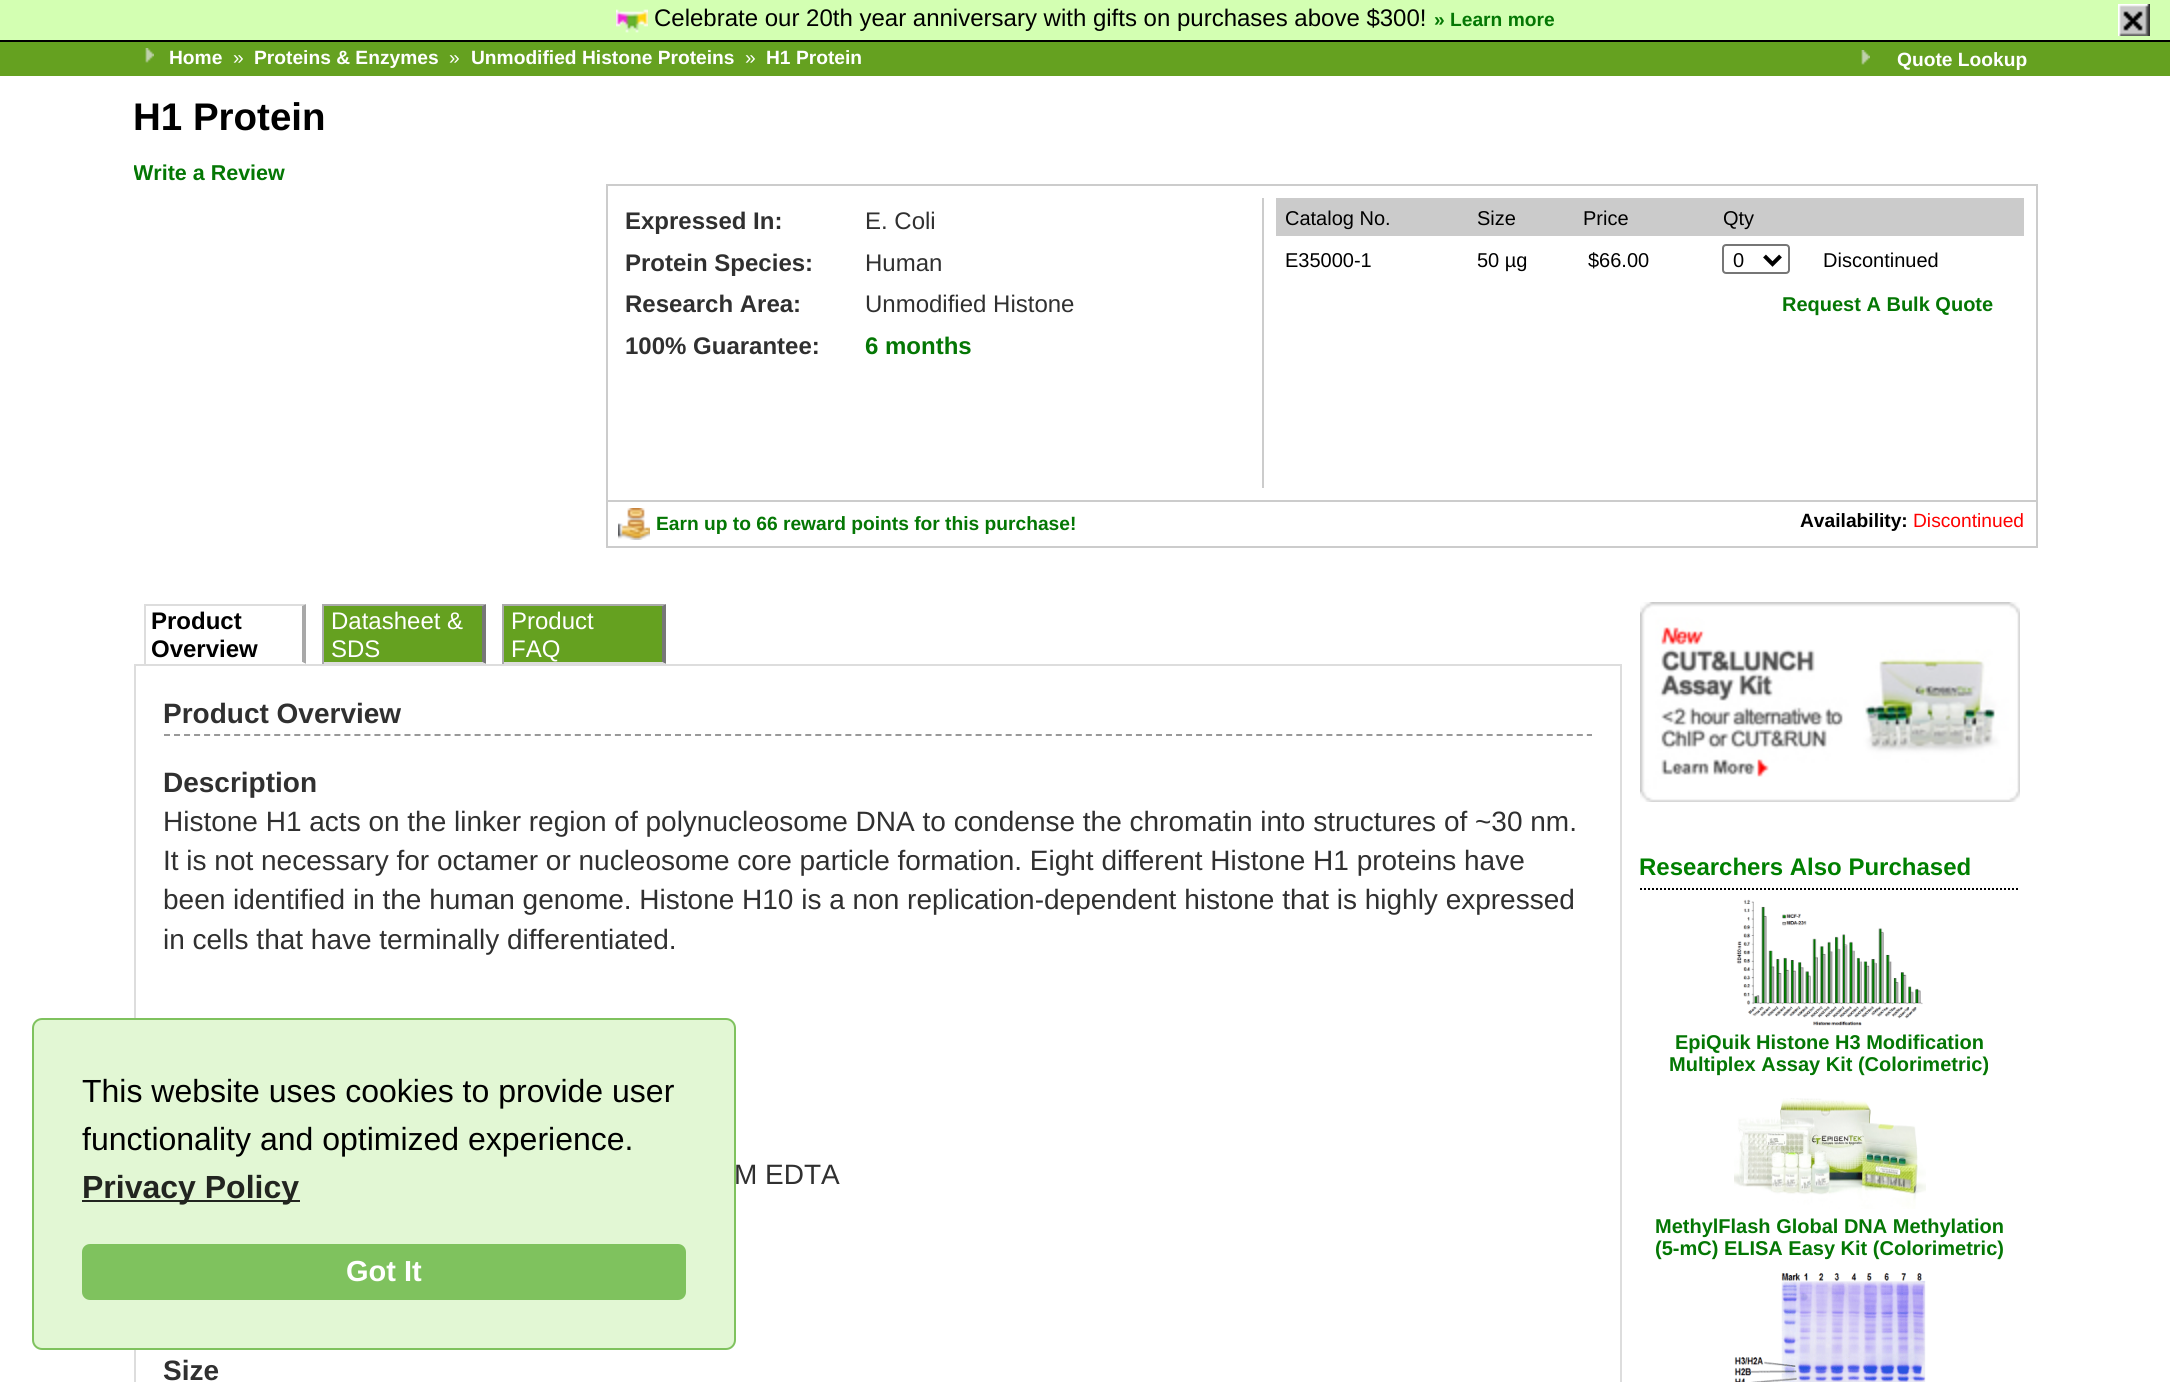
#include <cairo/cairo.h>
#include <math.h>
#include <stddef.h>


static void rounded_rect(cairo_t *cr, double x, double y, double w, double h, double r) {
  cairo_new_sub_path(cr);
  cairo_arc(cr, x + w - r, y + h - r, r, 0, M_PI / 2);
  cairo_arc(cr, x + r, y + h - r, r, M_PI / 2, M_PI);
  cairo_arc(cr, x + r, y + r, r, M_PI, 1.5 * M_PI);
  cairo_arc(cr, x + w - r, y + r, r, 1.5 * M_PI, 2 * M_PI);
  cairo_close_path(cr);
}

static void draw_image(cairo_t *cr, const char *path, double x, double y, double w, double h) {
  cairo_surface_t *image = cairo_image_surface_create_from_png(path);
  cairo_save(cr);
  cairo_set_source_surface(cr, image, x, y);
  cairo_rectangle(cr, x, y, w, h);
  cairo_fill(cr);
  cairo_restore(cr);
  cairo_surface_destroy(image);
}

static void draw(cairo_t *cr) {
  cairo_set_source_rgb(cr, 1, 1, 1);
  cairo_paint(cr);
  cairo_set_source_rgb(cr, 211 / 255.0, 1, 178 / 255.0);
  cairo_rectangle(cr, 0, 0, 2170, 40);
  cairo_fill(cr);
  cairo_set_source_rgb(cr, 0, 0, 0);
  cairo_rectangle(cr, 0, 40, 2170, 2);
  cairo_fill(cr);
  draw_image(cr, "images/1.png", 616, 9, 32, 24);
  draw_image(cr, "images/2.png", 2118, 4, 32, 32);
  cairo_set_source_rgb(cr, 101 / 255.0, 161 / 255.0, 32 / 255.0);
  cairo_rectangle(cr, 0, 42, 2170, 34);
  cairo_fill(cr);
  draw_image(cr, "images/3.png", 145, 48, 9, 15);
  draw_image(cr, "images/3.png", 1861, 50, 9, 15);
  cairo_rectangle(cr, 607, 185, 1430, 362);
  cairo_set_source_rgb(cr, 204 / 255.0, 204 / 255.0, 204 / 255.0);
  cairo_stroke(cr);
  cairo_rectangle(cr, 1262, 198, 2, 290);
  cairo_fill(cr);
  cairo_set_source_rgb(cr, 203 / 255.0, 203 / 255.0, 203 / 255.0);
  cairo_rectangle(cr, 1276, 198, 748, 38);
  cairo_fill(cr);
  rounded_rect(cr, 1723, 245, 66, 28, 3);
  cairo_set_source_rgb(cr, 118 / 255.0, 118 / 255.0, 118 / 255.0);
  cairo_stroke(cr);
  cairo_new_path(cr);
  cairo_move_to(cr, 1764.5, 256);
  cairo_line_to(cr, 1772.5, 264);
  cairo_line_to(cr, 1780.5, 256);
  cairo_set_source_rgb(cr, 0, 0, 0);
  cairo_set_line_width(cr, 4);
  cairo_stroke(cr);
  cairo_set_source_rgb(cr, 204 / 255.0, 204 / 255.0, 204 / 255.0);
  cairo_rectangle(cr, 608, 500, 1428, 2);
  cairo_fill(cr);
  draw_image(cr, "images/4.png", 618, 508, 32, 32);
  cairo_set_source_rgb(cr, 221 / 255.0, 221 / 255.0, 221 / 255.0);
  cairo_new_path(cr);
  cairo_move_to(cr, 144, 604);
  cairo_line_to(cr, 306, 604);
  cairo_line_to(cr, 302, 606);
  cairo_line_to(cr, 146, 606);
  cairo_close_path(cr);
  cairo_fill(cr);
  cairo_set_source_rgb(cr, 168 / 255.0, 168 / 255.0, 168 / 255.0);
  cairo_new_path(cr);
  cairo_move_to(cr, 306, 604);
  cairo_line_to(cr, 306, 664);
  cairo_line_to(cr, 302, 662);
  cairo_line_to(cr, 302, 606);
  cairo_close_path(cr);
  cairo_fill(cr);
  cairo_set_source_rgb(cr, 1, 1, 1);
  cairo_new_path(cr);
  cairo_move_to(cr, 306, 664);
  cairo_line_to(cr, 144, 664);
  cairo_line_to(cr, 146, 662);
  cairo_line_to(cr, 302, 662);
  cairo_close_path(cr);
  cairo_fill(cr);
  cairo_set_source_rgb(cr, 221 / 255.0, 221 / 255.0, 221 / 255.0);
  cairo_rectangle(cr, 144, 604, 2, 60);
  cairo_fill(cr);
  cairo_set_source_rgb(cr, 101 / 255.0, 161 / 255.0, 32 / 255.0);
  cairo_rectangle(cr, 324, 606, 158, 56);
  cairo_fill(cr);
  cairo_set_source_rgb(cr, 170 / 255.0, 170 / 255.0, 170 / 255.0);
  cairo_new_path(cr);
  cairo_move_to(cr, 322, 604);
  cairo_line_to(cr, 486, 604);
  cairo_line_to(cr, 482, 606);
  cairo_line_to(cr, 324, 606);
  cairo_close_path(cr);
  cairo_fill(cr);
  cairo_set_source_rgb(cr, 119 / 255.0, 119 / 255.0, 119 / 255.0);
  cairo_new_path(cr);
  cairo_move_to(cr, 486, 604);
  cairo_line_to(cr, 486, 664);
  cairo_line_to(cr, 482, 662);
  cairo_line_to(cr, 482, 606);
  cairo_close_path(cr);
  cairo_fill(cr);
  cairo_set_source_rgb(cr, 221 / 255.0, 221 / 255.0, 221 / 255.0);
  cairo_new_path(cr);
  cairo_move_to(cr, 486, 664);
  cairo_line_to(cr, 322, 664);
  cairo_line_to(cr, 324, 662);
  cairo_line_to(cr, 482, 662);
  cairo_close_path(cr);
  cairo_fill(cr);
  cairo_set_source_rgb(cr, 170 / 255.0, 170 / 255.0, 170 / 255.0);
  cairo_rectangle(cr, 322, 604, 2, 60);
  cairo_fill(cr);
  cairo_set_source_rgb(cr, 101 / 255.0, 161 / 255.0, 32 / 255.0);
  cairo_rectangle(cr, 504, 606, 158, 56);
  cairo_fill(cr);
  cairo_set_source_rgb(cr, 170 / 255.0, 170 / 255.0, 170 / 255.0);
  cairo_new_path(cr);
  cairo_move_to(cr, 502, 604);
  cairo_line_to(cr, 666, 604);
  cairo_line_to(cr, 662, 606);
  cairo_line_to(cr, 504, 606);
  cairo_close_path(cr);
  cairo_fill(cr);
  cairo_set_source_rgb(cr, 119 / 255.0, 119 / 255.0, 119 / 255.0);
  cairo_new_path(cr);
  cairo_move_to(cr, 666, 604);
  cairo_line_to(cr, 666, 664);
  cairo_line_to(cr, 662, 662);
  cairo_line_to(cr, 662, 606);
  cairo_close_path(cr);
  cairo_fill(cr);
  cairo_set_source_rgb(cr, 221 / 255.0, 221 / 255.0, 221 / 255.0);
  cairo_new_path(cr);
  cairo_move_to(cr, 666, 664);
  cairo_line_to(cr, 502, 664);
  cairo_line_to(cr, 504, 662);
  cairo_line_to(cr, 662, 662);
  cairo_close_path(cr);
  cairo_fill(cr);
  cairo_set_source_rgb(cr, 170 / 255.0, 170 / 255.0, 170 / 255.0);
  cairo_rectangle(cr, 502, 604, 2, 60);
  cairo_fill(cr);
  cairo_rectangle(cr, 135, 665, 1486, 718);
  cairo_set_source_rgb(cr, 221 / 255.0, 221 / 255.0, 221 / 255.0);
  cairo_set_line_width(cr, 2);
  cairo_stroke(cr);
  cairo_new_path(cr);
  cairo_move_to(cr, 164, 735);
  cairo_line_to(cr, 1592, 735);
  cairo_set_source_rgb(cr, 153 / 255.0, 153 / 255.0, 153 / 255.0);
  cairo_set_dash(cr, (double[]){6, 4.02}, 2, 0);
  cairo_stroke(cr);
  draw_image(cr, "images/5.png", 1640, 602, 380, 200);
  cairo_new_path(cr);
  cairo_move_to(cr, 1640, 889);
  cairo_line_to(cr, 2020, 889);
  cairo_set_source_rgb(cr, 0, 0, 0);
  cairo_set_dash(cr, (double[]){2, 2}, 2, 0);
  cairo_stroke(cr);
  draw_image(cr, "images/6.png", 1736, 899, 187, 127);
  draw_image(cr, "images/7.png", 1734, 1098, 192, 111);
  draw_image(cr, "images/8.png", 1734, 1273, 192, 109);
  cairo_set_source_rgb(cr, 226 / 255.0, 247 / 255.0, 212 / 255.0);
  rounded_rect(cr, 33, 1019, 702, 330, 9);
  cairo_fill_preserve(cr);
  cairo_set_source_rgb(cr, 127 / 255.0, 194 / 255.0, 94 / 255.0);
  cairo_set_dash(cr, NULL, 0, 0);
  cairo_stroke(cr);
  cairo_set_source_rgb(cr, 34 / 255.0, 37 / 255.0, 32 / 255.0);
  cairo_rectangle(cr, 82, 1200, 218, 2);
  cairo_fill(cr);
  cairo_set_source_rgb(cr, 127 / 255.0, 194 / 255.0, 94 / 255.0);
  rounded_rect(cr, 82, 1244, 604, 56, 8);
  cairo_fill(cr);
  cairo_select_font_face(cr, "Liberation Sans", CAIRO_FONT_SLANT_NORMAL, CAIRO_FONT_WEIGHT_NORMAL);
  cairo_set_font_size(cr, 24);
  cairo_set_source_rgb(cr, 0, 0, 0);
  cairo_move_to(cr, 654, 26);
  cairo_show_text(cr, "Celebrate our 20th year anniversary with gifts on purchases above $300!");
  cairo_select_font_face(cr, "Liberation Sans", CAIRO_FONT_SLANT_NORMAL, CAIRO_FONT_WEIGHT_BOLD);
  cairo_set_font_size(cr, 19.2);
  cairo_set_source_rgb(cr, 4 / 255.0, 119 / 255.0, 4 / 255.0);
  cairo_move_to(cr, 1434, 26);
  cairo_show_text(cr, "» Learn more");
  cairo_set_source_rgb(cr, 1, 1, 1);
  cairo_move_to(cr, 169, 64);
  cairo_show_text(cr, "Home");
  cairo_select_font_face(cr, "Liberation Sans", CAIRO_FONT_SLANT_NORMAL, CAIRO_FONT_WEIGHT_NORMAL);
  cairo_move_to(cr, 233, 64);
  cairo_show_text(cr, "»");
  cairo_select_font_face(cr, "Liberation Sans", CAIRO_FONT_SLANT_NORMAL, CAIRO_FONT_WEIGHT_BOLD);
  cairo_move_to(cr, 254, 64);
  cairo_show_text(cr, "Proteins & Enzymes");
  cairo_select_font_face(cr, "Liberation Sans", CAIRO_FONT_SLANT_NORMAL, CAIRO_FONT_WEIGHT_NORMAL);
  cairo_move_to(cr, 449, 64);
  cairo_show_text(cr, "»");
  cairo_select_font_face(cr, "Liberation Sans", CAIRO_FONT_SLANT_NORMAL, CAIRO_FONT_WEIGHT_BOLD);
  cairo_move_to(cr, 471, 64);
  cairo_show_text(cr, "Unmodified Histone Proteins");
  cairo_select_font_face(cr, "Liberation Sans", CAIRO_FONT_SLANT_NORMAL, CAIRO_FONT_WEIGHT_NORMAL);
  cairo_move_to(cr, 745, 64);
  cairo_show_text(cr, "»");
  cairo_select_font_face(cr, "Liberation Sans", CAIRO_FONT_SLANT_NORMAL, CAIRO_FONT_WEIGHT_BOLD);
  cairo_move_to(cr, 766, 64);
  cairo_show_text(cr, "H1 Protein");
  cairo_move_to(cr, 1897, 66);
  cairo_show_text(cr, "Quote Lookup");
  cairo_set_font_size(cr, 38.5);
  cairo_set_source_rgb(cr, 0, 0, 0);
  cairo_move_to(cr, 133, 130);
  cairo_show_text(cr, "H1 Protein");
  cairo_save(cr);
  cairo_rectangle(cr, 134, 76, 1904, 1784);
  cairo_clip(cr);
  cairo_set_font_size(cr, 21.5);
  cairo_set_source_rgb(cr, 4 / 255.0, 119 / 255.0, 4 / 255.0);
  cairo_move_to(cr, 133, 180);
  cairo_show_text(cr, "Write a Review");
  cairo_restore(cr);
  cairo_set_font_size(cr, 24);
  cairo_set_source_rgb(cr, 48 / 255.0, 48 / 255.0, 48 / 255.0);
  cairo_move_to(cr, 625, 229);
  cairo_show_text(cr, "Expressed In:");
  cairo_select_font_face(cr, "Liberation Sans", CAIRO_FONT_SLANT_NORMAL, CAIRO_FONT_WEIGHT_NORMAL);
  cairo_move_to(cr, 865, 229);
  cairo_show_text(cr, "E. Coli");
  cairo_select_font_face(cr, "Liberation Sans", CAIRO_FONT_SLANT_NORMAL, CAIRO_FONT_WEIGHT_BOLD);
  cairo_move_to(cr, 625, 271);
  cairo_show_text(cr, "Protein Species:");
  cairo_select_font_face(cr, "Liberation Sans", CAIRO_FONT_SLANT_NORMAL, CAIRO_FONT_WEIGHT_NORMAL);
  cairo_move_to(cr, 865, 271);
  cairo_show_text(cr, "Human");
  cairo_select_font_face(cr, "Liberation Sans", CAIRO_FONT_SLANT_NORMAL, CAIRO_FONT_WEIGHT_BOLD);
  cairo_move_to(cr, 625, 312);
  cairo_show_text(cr, "Research Area:");
  cairo_select_font_face(cr, "Liberation Sans", CAIRO_FONT_SLANT_NORMAL, CAIRO_FONT_WEIGHT_NORMAL);
  cairo_move_to(cr, 865, 312);
  cairo_show_text(cr, "Unmodified Histone");
  cairo_select_font_face(cr, "Liberation Sans", CAIRO_FONT_SLANT_NORMAL, CAIRO_FONT_WEIGHT_BOLD);
  cairo_move_to(cr, 625, 354);
  cairo_show_text(cr, "100% Guarantee:");
  cairo_set_source_rgb(cr, 4 / 255.0, 119 / 255.0, 4 / 255.0);
  cairo_move_to(cr, 865, 354);
  cairo_show_text(cr, "6 months");
  cairo_select_font_face(cr, "Liberation Sans", CAIRO_FONT_SLANT_NORMAL, CAIRO_FONT_WEIGHT_NORMAL);
  cairo_set_font_size(cr, 20);
  cairo_set_source_rgb(cr, 0, 0, 0);
  cairo_move_to(cr, 1285, 225);
  cairo_show_text(cr, "Catalog No.");
  cairo_move_to(cr, 1477, 225);
  cairo_show_text(cr, "Size");
  cairo_move_to(cr, 1583, 225);
  cairo_show_text(cr, "Price");
  cairo_move_to(cr, 1723, 225);
  cairo_show_text(cr, "Qty");
  cairo_move_to(cr, 1285, 267);
  cairo_show_text(cr, "E35000-1");
  cairo_move_to(cr, 1477, 267);
  cairo_show_text(cr, "50 µg");
  cairo_move_to(cr, 1588, 267);
  cairo_show_text(cr, "$66.00");
  cairo_move_to(cr, 1733, 267);
  cairo_show_text(cr, "0");
  cairo_move_to(cr, 1823, 267);
  cairo_show_text(cr, "Discontinued");
  cairo_select_font_face(cr, "Liberation Sans", CAIRO_FONT_SLANT_NORMAL, CAIRO_FONT_WEIGHT_BOLD);
  cairo_set_source_rgb(cr, 4 / 255.0, 119 / 255.0, 4 / 255.0);
  cairo_move_to(cr, 1782, 311);
  cairo_show_text(cr, "Request A Bulk Quote");
  cairo_set_font_size(cr, 19.2);
  cairo_move_to(cr, 656, 530);
  cairo_show_text(cr, "Earn up to 66 reward points for this purchase!");
  cairo_set_source_rgb(cr, 0, 0, 0);
  cairo_move_to(cr, 1800, 527);
  cairo_show_text(cr, "Availability:");
  cairo_select_font_face(cr, "Liberation Sans", CAIRO_FONT_SLANT_NORMAL, CAIRO_FONT_WEIGHT_NORMAL);
  cairo_set_source_rgb(cr, 1, 0, 0);
  cairo_move_to(cr, 1913, 527);
  cairo_show_text(cr, "Discontinued");
  cairo_select_font_face(cr, "Liberation Sans", CAIRO_FONT_SLANT_NORMAL, CAIRO_FONT_WEIGHT_BOLD);
  cairo_set_font_size(cr, 24);
  cairo_set_source_rgb(cr, 0, 0, 0);
  cairo_move_to(cr, 151, 629);
  cairo_show_text(cr, "Product");
  cairo_move_to(cr, 151, 657);
  cairo_show_text(cr, "Overview");
  cairo_select_font_face(cr, "Liberation Sans", CAIRO_FONT_SLANT_NORMAL, CAIRO_FONT_WEIGHT_NORMAL);
  cairo_set_source_rgb(cr, 1, 1, 1);
  cairo_move_to(cr, 331, 629);
  cairo_show_text(cr, "Datasheet &");
  cairo_move_to(cr, 331, 657);
  cairo_show_text(cr, "SDS");
  cairo_move_to(cr, 511, 629);
  cairo_show_text(cr, "Product");
  cairo_move_to(cr, 511, 657);
  cairo_show_text(cr, "FAQ");
  cairo_select_font_face(cr, "Liberation Sans", CAIRO_FONT_SLANT_NORMAL, CAIRO_FONT_WEIGHT_BOLD);
  cairo_set_font_size(cr, 28);
  cairo_set_source_rgb(cr, 48 / 255.0, 48 / 255.0, 48 / 255.0);
  cairo_move_to(cr, 163, 723);
  cairo_show_text(cr, "Product Overview");
  cairo_move_to(cr, 163, 792);
  cairo_show_text(cr, "Description");
  cairo_select_font_face(cr, "Liberation Sans", CAIRO_FONT_SLANT_NORMAL, CAIRO_FONT_WEIGHT_NORMAL);
  cairo_move_to(cr, 163, 831);
  cairo_show_text(cr, "Histone H1 acts on the linker region of polynucleosome DNA to condense the chromatin into structures of ~30 nm.");
  cairo_move_to(cr, 163, 870);
  cairo_show_text(cr, "It is not necessary for octamer or nucleosome core particle formation. Eight different Histone H1 proteins have");
  cairo_move_to(cr, 163, 909);
  cairo_show_text(cr, "been identified in the human genome. Histone H10 is a non replication-dependent histone that is highly expressed");
  cairo_move_to(cr, 163, 949);
  cairo_show_text(cr, "in cells that have terminally differentiated.");
  cairo_move_to(cr, 734, 1184);
  cairo_show_text(cr, "M EDTA");
  cairo_select_font_face(cr, "Liberation Sans", CAIRO_FONT_SLANT_NORMAL, CAIRO_FONT_WEIGHT_BOLD);
  cairo_move_to(cr, 163, 1380);
  cairo_show_text(cr, "Size");
  cairo_set_font_size(cr, 24);
  cairo_set_source_rgb(cr, 0, 128 / 255.0, 0);
  cairo_move_to(cr, 1639, 875);
  cairo_show_text(cr, "Researchers Also Purchased");
  cairo_set_font_size(cr, 20);
  cairo_set_source_rgb(cr, 4 / 255.0, 119 / 255.0, 4 / 255.0);
  cairo_move_to(cr, 1675, 1049);
  cairo_show_text(cr, "EpiQuik Histone H3 Modification");
  cairo_move_to(cr, 1669, 1071);
  cairo_show_text(cr, "Multiplex Assay Kit (Colorimetric)");
  cairo_move_to(cr, 1655, 1233);
  cairo_show_text(cr, "MethylFlash Global DNA Methylation");
  cairo_move_to(cr, 1655, 1255);
  cairo_show_text(cr, "(5-mC) ELISA Easy Kit (Colorimetric)");
  cairo_select_font_face(cr, "Liberation Sans", CAIRO_FONT_SLANT_NORMAL, CAIRO_FONT_WEIGHT_NORMAL);
  cairo_set_font_size(cr, 32);
  cairo_set_source_rgb(cr, 0, 0, 0);
  cairo_move_to(cr, 82, 1102);
  cairo_show_text(cr, "This website uses cookies to provide user");
  cairo_move_to(cr, 82, 1150);
  cairo_show_text(cr, "functionality and optimized experience.");
  cairo_select_font_face(cr, "Liberation Sans", CAIRO_FONT_SLANT_NORMAL, CAIRO_FONT_WEIGHT_BOLD);
  cairo_set_source_rgb(cr, 34 / 255.0, 37 / 255.0, 32 / 255.0);
  cairo_move_to(cr, 82, 1198);
  cairo_show_text(cr, "Privacy Policy");
  cairo_set_font_size(cr, 29);
  cairo_set_source_rgb(cr, 1, 1, 1);
  cairo_move_to(cr, 346, 1281);
  cairo_show_text(cr, "Got It");
}

int main(void) {
  cairo_surface_t *surface = cairo_image_surface_create(CAIRO_FORMAT_RGB24, 2170, 1382);
  cairo_t *cr = cairo_create(surface);
  cairo_font_options_t *options = cairo_font_options_create();
  cairo_font_options_set_hint_metrics(options, CAIRO_HINT_METRICS_OFF);
  cairo_font_options_set_hint_style(options, CAIRO_HINT_STYLE_NONE);
  cairo_set_font_options(cr, options);
  cairo_set_miter_limit(cr, 4);
  draw(cr);
  cairo_surface_write_to_png(surface, "out.png");
  cairo_font_options_destroy(options);
  cairo_destroy(cr);
  cairo_surface_destroy(surface);
  return 0;
}
